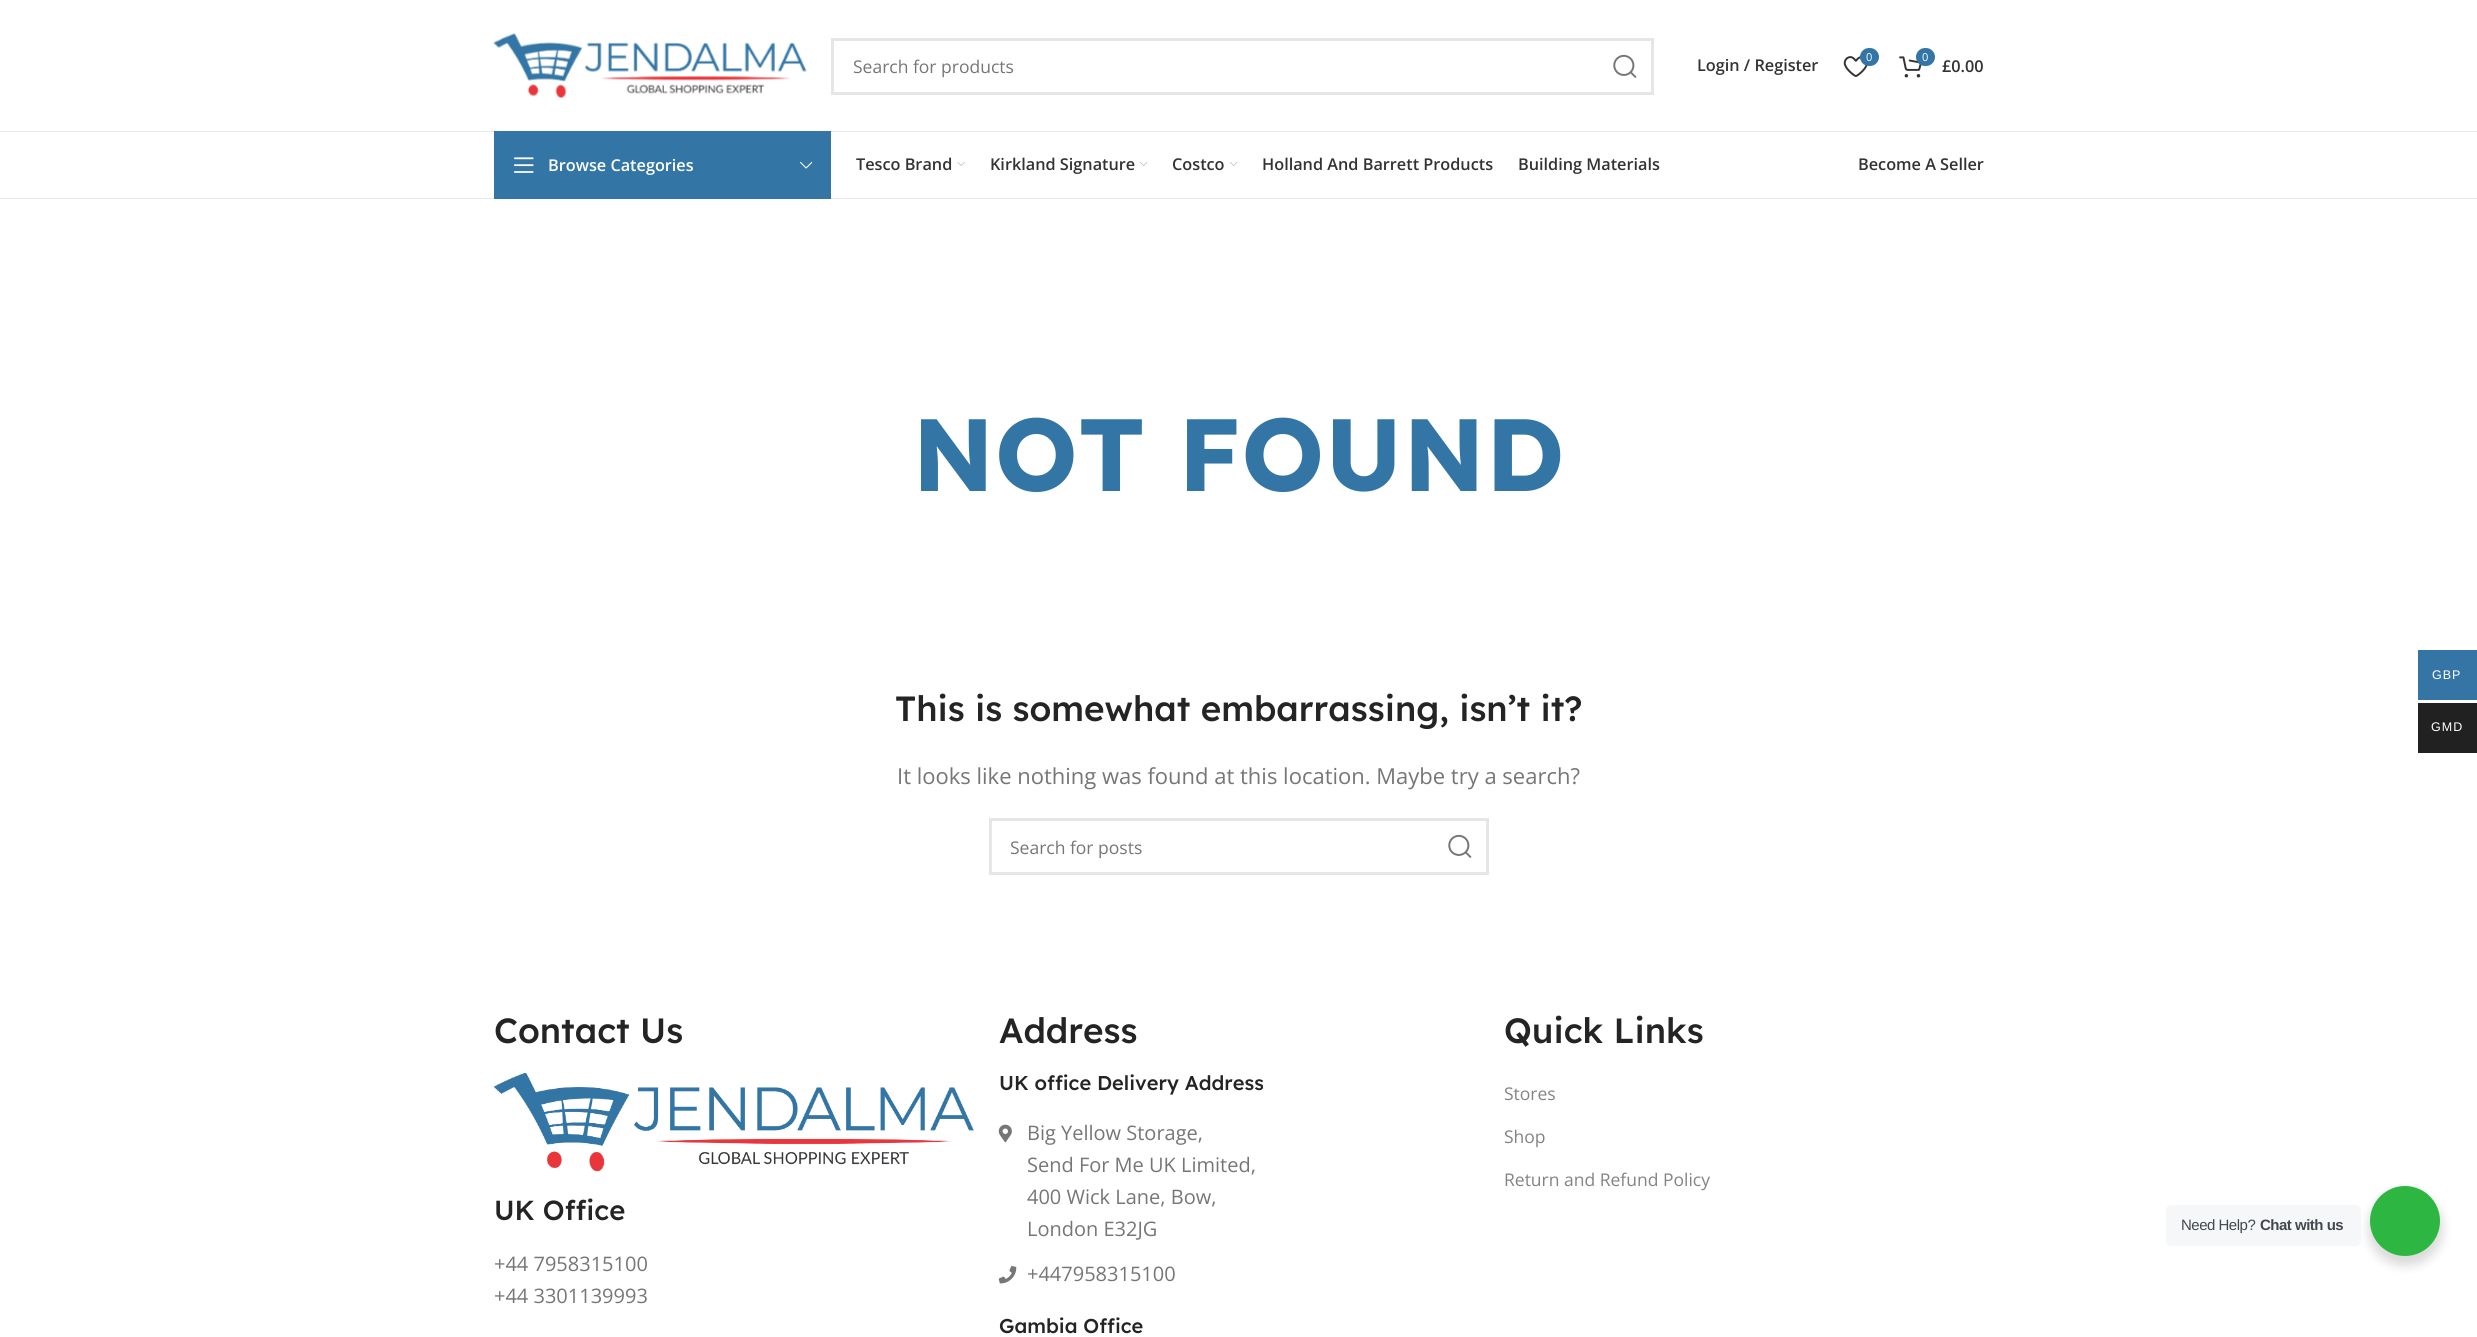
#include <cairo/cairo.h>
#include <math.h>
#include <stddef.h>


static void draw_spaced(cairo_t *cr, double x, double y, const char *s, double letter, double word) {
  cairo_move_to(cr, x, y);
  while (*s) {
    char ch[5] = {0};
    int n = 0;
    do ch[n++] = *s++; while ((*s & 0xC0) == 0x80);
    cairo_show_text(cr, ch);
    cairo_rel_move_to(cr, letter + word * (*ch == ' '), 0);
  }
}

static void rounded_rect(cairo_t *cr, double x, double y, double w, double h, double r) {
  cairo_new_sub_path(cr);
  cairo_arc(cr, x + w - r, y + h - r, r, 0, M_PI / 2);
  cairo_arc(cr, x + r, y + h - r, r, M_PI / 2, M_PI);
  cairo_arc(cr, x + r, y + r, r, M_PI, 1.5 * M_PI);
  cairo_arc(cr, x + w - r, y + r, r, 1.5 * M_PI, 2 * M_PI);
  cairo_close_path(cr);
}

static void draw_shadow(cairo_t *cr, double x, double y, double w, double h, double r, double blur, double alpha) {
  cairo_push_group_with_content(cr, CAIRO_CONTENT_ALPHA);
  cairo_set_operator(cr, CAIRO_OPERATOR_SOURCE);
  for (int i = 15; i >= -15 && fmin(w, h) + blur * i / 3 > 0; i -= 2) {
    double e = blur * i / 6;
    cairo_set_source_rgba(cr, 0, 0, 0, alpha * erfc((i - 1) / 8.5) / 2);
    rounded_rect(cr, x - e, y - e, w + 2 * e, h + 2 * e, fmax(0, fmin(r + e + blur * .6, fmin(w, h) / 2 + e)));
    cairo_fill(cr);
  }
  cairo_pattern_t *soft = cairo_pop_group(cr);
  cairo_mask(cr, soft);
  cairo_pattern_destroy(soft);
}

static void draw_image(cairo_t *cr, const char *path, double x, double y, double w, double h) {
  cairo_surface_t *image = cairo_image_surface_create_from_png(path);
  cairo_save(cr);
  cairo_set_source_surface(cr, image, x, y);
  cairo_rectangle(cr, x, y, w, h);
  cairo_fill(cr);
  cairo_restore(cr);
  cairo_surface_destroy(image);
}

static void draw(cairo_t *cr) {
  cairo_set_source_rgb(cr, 1, 1, 1);
  cairo_paint(cr);
  cairo_set_source_rgb(cr, 232 / 255.0, 232 / 255.0, 232 / 255.0);
  cairo_rectangle(cr, 0, 131, 2477, 1);
  cairo_fill(cr);
  draw_image(cr, "images/1.png", 493, 33, 314, 65);
  cairo_rectangle(cr, 832.5, 39.5, 820, 54);
  cairo_set_source_rgb(cr, 230 / 255.0, 230 / 255.0, 230 / 255.0);
  cairo_set_line_width(cr, 3);
  cairo_stroke(cr);
  draw_image(cr, "images/2.png", 1613, 54, 24, 24);
  draw_image(cr, "images/3.png", 1843, 56, 25, 21);
  cairo_set_source_rgb(cr, 51 / 255.0, 118 / 255.0, 166 / 255.0);
  rounded_rect(cr, 1860, 48, 19, 18, 9);
  cairo_fill(cr);
  draw_image(cr, "images/4.png", 1899, 56, 23, 22);
  rounded_rect(cr, 1916, 48, 19, 18, 9);
  cairo_fill(cr);
  cairo_set_source_rgb(cr, 232 / 255.0, 232 / 255.0, 232 / 255.0);
  cairo_rectangle(cr, 0, 198, 2477, 1);
  cairo_fill(cr);
  cairo_set_source_rgb(cr, 51 / 255.0, 118 / 255.0, 166 / 255.0);
  cairo_rectangle(cr, 494, 131, 337, 68);
  cairo_fill(cr);
  draw_image(cr, "images/5.png", 513, 157, 21, 16);
  draw_image(cr, "images/6.png", 800, 161, 13, 8);
  draw_image(cr, "images/7.png", 957, 162, 8, 4);
  draw_image(cr, "images/8.png", 1140, 162, 8, 4);
  draw_image(cr, "images/8.png", 1230, 162, 8, 4);
  cairo_rectangle(cr, 990.5, 819.5, 497, 54);
  cairo_set_source_rgb(cr, 230 / 255.0, 230 / 255.0, 230 / 255.0);
  cairo_stroke(cr);
  draw_image(cr, "images/2.png", 1448, 834, 24, 24);
  draw_image(cr, "images/9.png", 494, 1073, 480, 99);
  draw_image(cr, "images/10.png", 998, 1124, 14, 19);
  draw_image(cr, "images/11.png", 998, 1266, 19, 18);
  cairo_set_source_rgb(cr, 52 / 255.0, 117 / 255.0, 166 / 255.0);
  cairo_rectangle(cr, 2418, 650, 59, 50);
  cairo_fill(cr);
  cairo_set_source_rgb(cr, 33 / 255.0, 33 / 255.0, 33 / 255.0);
  cairo_rectangle(cr, 2418, 703, 59, 50);
  cairo_fill(cr);
  cairo_set_source_rgb(cr, 0, 0, 0);
  draw_shadow(cr, 2368, 1191, 75, 75, 37.5, 5, 0.14);
  cairo_set_source_rgb(cr, 245 / 255.0, 247 / 255.0, 249 / 255.0);
  rounded_rect(cr, 2166, 1205, 195, 41, 5);
  cairo_fill(cr);
  cairo_set_source_rgb(cr, 45 / 255.0, 183 / 255.0, 66 / 255.0);
  cairo_arc(cr, 2405, 1221, 35, 0, 2 * M_PI);
  cairo_fill(cr);
  cairo_select_font_face(cr, "Open Sans", CAIRO_FONT_SLANT_NORMAL, CAIRO_FONT_WEIGHT_NORMAL);
  cairo_set_font_size(cr, 17.5);
  cairo_set_source_rgb(cr, 118 / 255.0, 118 / 255.0, 118 / 255.0);
  cairo_move_to(cr, 853, 73);
  cairo_show_text(cr, "Search for products");
  cairo_select_font_face(cr, "Open Sans SemiBold", CAIRO_FONT_SLANT_NORMAL, CAIRO_FONT_WEIGHT_NORMAL);
  cairo_set_font_size(cr, 16.25);
  cairo_set_source_rgb(cr, 51 / 255.0, 51 / 255.0, 51 / 255.0);
  cairo_move_to(cr, 1697, 71);
  cairo_show_text(cr, "Login / Register");
  cairo_select_font_face(cr, "Open Sans", CAIRO_FONT_SLANT_NORMAL, CAIRO_FONT_WEIGHT_NORMAL);
  cairo_set_font_size(cr, 11);
  cairo_set_source_rgb(cr, 1, 1, 1);
  cairo_move_to(cr, 1866, 61);
  cairo_show_text(cr, "0");
  cairo_move_to(cr, 1922, 61);
  cairo_show_text(cr, "0");
  cairo_select_font_face(cr, "Open Sans SemiBold", CAIRO_FONT_SLANT_NORMAL, CAIRO_FONT_WEIGHT_NORMAL);
  cairo_set_font_size(cr, 16.25);
  cairo_set_source_rgb(cr, 51 / 255.0, 51 / 255.0, 51 / 255.0);
  cairo_move_to(cr, 1942, 72);
  cairo_show_text(cr, "£0.00");
  cairo_set_source_rgb(cr, 1, 1, 1);
  cairo_move_to(cr, 548, 171);
  cairo_show_text(cr, "Browse Categories");
  cairo_set_source_rgb(cr, 51 / 255.0, 51 / 255.0, 51 / 255.0);
  cairo_move_to(cr, 856, 170);
  cairo_show_text(cr, "Tesco Brand");
  cairo_move_to(cr, 990, 170);
  cairo_show_text(cr, "Kirkland Signature");
  cairo_move_to(cr, 1172, 170);
  cairo_show_text(cr, "Costco");
  cairo_move_to(cr, 1262, 170);
  cairo_show_text(cr, "Holland And Barrett Products");
  cairo_move_to(cr, 1518, 170);
  cairo_show_text(cr, "Building Materials");
  cairo_move_to(cr, 1858, 170);
  cairo_show_text(cr, "Become A Seller");
  cairo_select_font_face(cr, "Lexend Deca", CAIRO_FONT_SLANT_NORMAL, CAIRO_FONT_WEIGHT_BOLD);
  cairo_set_font_size(cr, 102.5);
  cairo_set_source_rgb(cr, 51 / 255.0, 118 / 255.0, 166 / 255.0);
  cairo_move_to(cr, 912, 491);
  cairo_show_text(cr, "NOT FOUND");
  cairo_select_font_face(cr, "Lexend Deca Medium", CAIRO_FONT_SLANT_NORMAL, CAIRO_FONT_WEIGHT_NORMAL);
  cairo_set_font_size(cr, 35);
  cairo_set_source_rgb(cr, 36 / 255.0, 36 / 255.0, 36 / 255.0);
  cairo_move_to(cr, 895, 721);
  cairo_show_text(cr, "This is somewhat embarrassing, isn’t it?");
  cairo_select_font_face(cr, "Open Sans", CAIRO_FONT_SLANT_NORMAL, CAIRO_FONT_WEIGHT_NORMAL);
  cairo_set_font_size(cr, 22);
  cairo_set_source_rgb(cr, 118 / 255.0, 118 / 255.0, 118 / 255.0);
  cairo_move_to(cr, 897, 784);
  cairo_show_text(cr, "It looks like nothing was found at this location. Maybe try a search?");
  cairo_set_font_size(cr, 17.5);
  cairo_move_to(cr, 1010, 854);
  cairo_show_text(cr, "Search for posts");
  cairo_select_font_face(cr, "Lexend Deca Medium", CAIRO_FONT_SLANT_NORMAL, CAIRO_FONT_WEIGHT_NORMAL);
  cairo_set_font_size(cr, 35);
  cairo_set_source_rgb(cr, 36 / 255.0, 36 / 255.0, 36 / 255.0);
  cairo_move_to(cr, 494, 1043);
  cairo_show_text(cr, "Contact Us");
  cairo_set_font_size(cr, 27.5);
  cairo_move_to(cr, 494, 1220);
  cairo_show_text(cr, "UK Office");
  cairo_select_font_face(cr, "Open Sans", CAIRO_FONT_SLANT_NORMAL, CAIRO_FONT_WEIGHT_NORMAL);
  cairo_set_font_size(cr, 20);
  cairo_set_source_rgb(cr, 118 / 255.0, 118 / 255.0, 118 / 255.0);
  cairo_move_to(cr, 494, 1271);
  cairo_show_text(cr, "+44 7958315100");
  cairo_move_to(cr, 494, 1303);
  cairo_show_text(cr, "+44 3301139993");
  cairo_select_font_face(cr, "Lexend Deca Medium", CAIRO_FONT_SLANT_NORMAL, CAIRO_FONT_WEIGHT_NORMAL);
  cairo_set_font_size(cr, 35);
  cairo_set_source_rgb(cr, 36 / 255.0, 36 / 255.0, 36 / 255.0);
  cairo_move_to(cr, 999, 1043);
  cairo_show_text(cr, "Address");
  cairo_set_font_size(cr, 20);
  cairo_move_to(cr, 999, 1090);
  cairo_show_text(cr, "UK office Delivery Address");
  cairo_select_font_face(cr, "Open Sans", CAIRO_FONT_SLANT_NORMAL, CAIRO_FONT_WEIGHT_NORMAL);
  cairo_set_source_rgb(cr, 118 / 255.0, 118 / 255.0, 118 / 255.0);
  cairo_move_to(cr, 1027, 1140);
  cairo_show_text(cr, "Big Yellow Storage,");
  cairo_move_to(cr, 1027, 1172);
  cairo_show_text(cr, "Send For Me UK Limited,");
  cairo_move_to(cr, 1027, 1204);
  cairo_show_text(cr, "400 Wick Lane, Bow,");
  cairo_move_to(cr, 1027, 1236);
  cairo_show_text(cr, "London E32JG");
  cairo_move_to(cr, 1027, 1281);
  cairo_show_text(cr, "+447958315100");
  cairo_select_font_face(cr, "Lexend Deca Medium", CAIRO_FONT_SLANT_NORMAL, CAIRO_FONT_WEIGHT_NORMAL);
  cairo_set_source_rgb(cr, 36 / 255.0, 36 / 255.0, 36 / 255.0);
  cairo_move_to(cr, 999, 1333);
  cairo_show_text(cr, "Gambia Office");
  cairo_set_font_size(cr, 35);
  cairo_move_to(cr, 1504, 1043);
  cairo_show_text(cr, "Quick Links");
  cairo_select_font_face(cr, "Open Sans", CAIRO_FONT_SLANT_NORMAL, CAIRO_FONT_WEIGHT_NORMAL);
  cairo_set_font_size(cr, 17.5);
  cairo_set_source_rgb(cr, 131 / 255.0, 131 / 255.0, 131 / 255.0);
  cairo_move_to(cr, 1504, 1100);
  cairo_show_text(cr, "Stores");
  cairo_move_to(cr, 1504, 1143);
  cairo_show_text(cr, "Shop");
  cairo_move_to(cr, 1504, 1186);
  cairo_show_text(cr, "Return and Refund Policy");
  cairo_select_font_face(cr, "Liberation Sans", CAIRO_FONT_SLANT_NORMAL, CAIRO_FONT_WEIGHT_NORMAL);
  cairo_set_font_size(cr, 12.5);
  cairo_set_source_rgb(cr, 1, 1, 1);
  draw_spaced(cr, 2432, 679, "GBP", 1, 0);
  draw_spaced(cr, 2431, 731, "GMD", 1, 0);
  cairo_set_font_size(cr, 15);
  cairo_set_source_rgb(cr, 67 / 255.0, 71 / 255.0, 78 / 255.0);
  draw_spaced(cr, 2181, 1230, "Need Help?", -0.5, 0);
  cairo_select_font_face(cr, "Liberation Sans", CAIRO_FONT_SLANT_NORMAL, CAIRO_FONT_WEIGHT_BOLD);
  draw_spaced(cr, 2260, 1230, "Chat with us", -0.5, 0);
}

int main(void) {
  cairo_surface_t *surface = cairo_image_surface_create(CAIRO_FORMAT_RGB24, 2477, 1337);
  cairo_t *cr = cairo_create(surface);
  cairo_font_options_t *options = cairo_font_options_create();
  cairo_font_options_set_hint_metrics(options, CAIRO_HINT_METRICS_OFF);
  cairo_font_options_set_hint_style(options, CAIRO_HINT_STYLE_NONE);
  cairo_set_font_options(cr, options);
  cairo_set_miter_limit(cr, 4);
  draw(cr);
  cairo_surface_write_to_png(surface, "out.png");
  cairo_font_options_destroy(options);
  cairo_destroy(cr);
  cairo_surface_destroy(surface);
  return 0;
}
